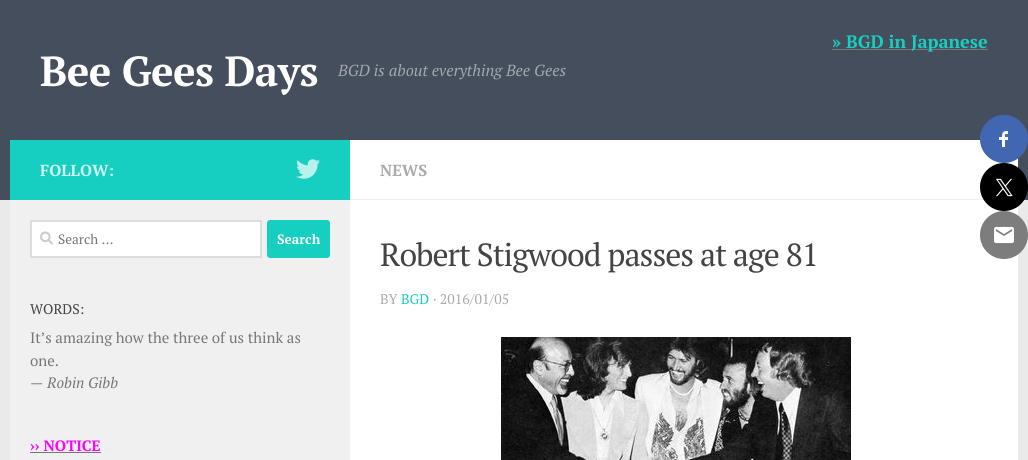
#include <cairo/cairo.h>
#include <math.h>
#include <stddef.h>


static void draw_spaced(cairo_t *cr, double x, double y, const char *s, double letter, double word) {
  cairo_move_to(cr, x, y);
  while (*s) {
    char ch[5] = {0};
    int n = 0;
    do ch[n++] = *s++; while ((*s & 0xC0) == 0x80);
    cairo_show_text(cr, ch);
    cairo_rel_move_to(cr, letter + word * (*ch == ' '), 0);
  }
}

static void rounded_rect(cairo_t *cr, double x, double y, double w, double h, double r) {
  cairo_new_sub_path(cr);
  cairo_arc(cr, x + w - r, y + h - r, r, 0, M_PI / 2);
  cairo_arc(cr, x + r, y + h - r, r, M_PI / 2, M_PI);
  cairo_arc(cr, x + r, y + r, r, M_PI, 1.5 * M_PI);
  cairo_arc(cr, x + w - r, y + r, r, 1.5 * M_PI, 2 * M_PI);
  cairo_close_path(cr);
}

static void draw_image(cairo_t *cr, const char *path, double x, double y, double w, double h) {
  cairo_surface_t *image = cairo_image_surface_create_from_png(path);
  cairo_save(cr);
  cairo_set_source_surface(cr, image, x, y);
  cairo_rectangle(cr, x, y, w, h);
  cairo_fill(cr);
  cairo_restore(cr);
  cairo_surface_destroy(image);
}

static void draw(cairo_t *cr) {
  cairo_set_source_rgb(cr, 234 / 255.0, 234 / 255.0, 234 / 255.0);
  cairo_paint(cr);
  cairo_set_source_rgb(cr, 69 / 255.0, 78 / 255.0, 92 / 255.0);
  cairo_rectangle(cr, 0, 0, 1028, 200);
  cairo_fill(cr);
  cairo_set_source_rgb(cr, 119 / 255.0, 119 / 255.0, 119 / 255.0);
  cairo_rectangle(cr, 832, 49, 156, 1);
  cairo_fill(cr);
  cairo_set_source_rgb(cr, 1, 1, 1);
  cairo_rectangle(cr, 350, 140, 668, 320);
  cairo_fill(cr);
  cairo_set_source_rgb(cr, 22 / 255.0, 207 / 255.0, 193 / 255.0);
  cairo_rectangle(cr, 10, 140, 340, 60);
  cairo_fill(cr);
  draw_image(cr, "images/1.png", 296, 159, 24, 20);
  cairo_set_source_rgb(cr, 240 / 255.0, 240 / 255.0, 240 / 255.0);
  cairo_rectangle(cr, 10, 200, 340, 260);
  cairo_fill(cr);
  cairo_set_source_rgb(cr, 1, 1, 1);
  cairo_rectangle(cr, 31, 221, 230, 36);
  cairo_fill_preserve(cr);
  cairo_set_source_rgb(cr, 221 / 255.0, 221 / 255.0, 221 / 255.0);
  cairo_stroke(cr);
  draw_image(cr, "images/2.png", 40, 231, 13, 14);
  cairo_set_source_rgb(cr, 22 / 255.0, 207 / 255.0, 193 / 255.0);
  rounded_rect(cr, 267, 220, 63, 38, 3);
  cairo_fill(cr);
  cairo_set_source_rgb(cr, 119 / 255.0, 119 / 255.0, 119 / 255.0);
  cairo_rectangle(cr, 30, 452, 71, 1);
  cairo_fill(cr);
  cairo_set_source_rgb(cr, 238 / 255.0, 238 / 255.0, 238 / 255.0);
  cairo_rectangle(cr, 350, 199, 634, 1);
  cairo_fill(cr);
  draw_image(cr, "images/3.png", 501, 337, 350, 123);
  cairo_set_source_rgb(cr, 66 / 255.0, 103 / 255.0, 178 / 255.0);
  cairo_arc(cr, 1004, 139, 24, 0, 2 * M_PI);
  cairo_fill(cr);
  draw_image(cr, "images/4.png", 999, 131, 9, 16);
  cairo_set_source_rgb(cr, 0, 0, 0);
  cairo_arc(cr, 1004, 187, 24, 0, 2 * M_PI);
  cairo_fill(cr);
  draw_image(cr, "images/5.png", 996, 178, 17, 19);
  cairo_set_source_rgb(cr, 125 / 255.0, 125 / 255.0, 125 / 255.0);
  cairo_arc(cr, 1004, 235, 24, 0, 2 * M_PI);
  cairo_fill(cr);
  draw_image(cr, "images/6.png", 994, 226, 20, 18);
  cairo_select_font_face(cr, "PT Serif", CAIRO_FONT_SLANT_NORMAL, CAIRO_FONT_WEIGHT_BOLD);
  cairo_set_font_size(cr, 18);
  cairo_set_source_rgb(cr, 22 / 255.0, 207 / 255.0, 193 / 255.0);
  cairo_move_to(cr, 832, 48);
  cairo_show_text(cr, "» BGD in Japanese");
  cairo_set_font_size(cr, 42);
  cairo_set_source_rgb(cr, 1, 1, 1);
  draw_spaced(cr, 40, 86, "Bee Gees Days", -0.5, 0);
  cairo_select_font_face(cr, "PT Serif", CAIRO_FONT_SLANT_ITALIC, CAIRO_FONT_WEIGHT_NORMAL);
  cairo_set_font_size(cr, 16);
  cairo_set_source_rgb(cr, 162 / 255.0, 167 / 255.0, 174 / 255.0);
  cairo_move_to(cr, 338, 76);
  cairo_show_text(cr, "BGD is about everything Bee Gees");
  cairo_select_font_face(cr, "PT Serif", CAIRO_FONT_SLANT_NORMAL, CAIRO_FONT_WEIGHT_BOLD);
  cairo_set_source_rgb(cr, 208 / 255.0, 245 / 255.0, 243 / 255.0);
  cairo_move_to(cr, 40, 176);
  cairo_show_text(cr, "FOLLOW:");
  cairo_select_font_face(cr, "PT Serif", CAIRO_FONT_SLANT_NORMAL, CAIRO_FONT_WEIGHT_NORMAL);
  cairo_set_font_size(cr, 13.5);
  cairo_set_source_rgb(cr, 119 / 255.0, 119 / 255.0, 119 / 255.0);
  cairo_move_to(cr, 58, 244);
  cairo_show_text(cr, "Search …");
  cairo_select_font_face(cr, "PT Serif", CAIRO_FONT_SLANT_NORMAL, CAIRO_FONT_WEIGHT_BOLD);
  cairo_set_source_rgb(cr, 1, 1, 1);
  cairo_move_to(cr, 277, 244);
  cairo_show_text(cr, "Search");
  cairo_select_font_face(cr, "PT Serif", CAIRO_FONT_SLANT_NORMAL, CAIRO_FONT_WEIGHT_NORMAL);
  cairo_set_font_size(cr, 14);
  cairo_set_source_rgb(cr, 68 / 255.0, 68 / 255.0, 68 / 255.0);
  cairo_move_to(cr, 30, 314);
  cairo_show_text(cr, "WORDS:");
  cairo_set_font_size(cr, 15);
  cairo_set_source_rgb(cr, 119 / 255.0, 119 / 255.0, 119 / 255.0);
  cairo_move_to(cr, 30, 343);
  cairo_show_text(cr, "It’s amazing how the three of us think as");
  cairo_move_to(cr, 30, 366);
  cairo_show_text(cr, "one.");
  cairo_move_to(cr, 30, 388);
  cairo_show_text(cr, "—");
  cairo_select_font_face(cr, "PT Serif", CAIRO_FONT_SLANT_ITALIC, CAIRO_FONT_WEIGHT_NORMAL);
  cairo_move_to(cr, 47, 388);
  cairo_show_text(cr, "Robin Gibb");
  cairo_select_font_face(cr, "PT Serif", CAIRO_FONT_SLANT_NORMAL, CAIRO_FONT_WEIGHT_BOLD);
  cairo_set_source_rgb(cr, 1, 0, 1);
  cairo_move_to(cr, 30, 451);
  cairo_show_text(cr, "›› NOTICE");
  cairo_set_font_size(cr, 16);
  cairo_set_source_rgb(cr, 170 / 255.0, 170 / 255.0, 170 / 255.0);
  cairo_move_to(cr, 380, 176);
  cairo_show_text(cr, "NEWS");
  cairo_select_font_face(cr, "PT Serif", CAIRO_FONT_SLANT_NORMAL, CAIRO_FONT_WEIGHT_NORMAL);
  cairo_set_font_size(cr, 32);
  cairo_set_source_rgb(cr, 68 / 255.0, 68 / 255.0, 68 / 255.0);
  draw_spaced(cr, 380, 266, "Robert Stigwood passes at age 81", -1, 0);
  cairo_set_font_size(cr, 14);
  cairo_set_source_rgb(cr, 170 / 255.0, 170 / 255.0, 170 / 255.0);
  cairo_move_to(cr, 380, 304);
  cairo_show_text(cr, "BY");
  cairo_set_source_rgb(cr, 22 / 255.0, 207 / 255.0, 193 / 255.0);
  cairo_move_to(cr, 401, 304);
  cairo_show_text(cr, "BGD");
  cairo_set_source_rgb(cr, 170 / 255.0, 170 / 255.0, 170 / 255.0);
  cairo_move_to(cr, 433, 304);
  cairo_show_text(cr, "· 2016/01/05");
}

int main(void) {
  cairo_surface_t *surface = cairo_image_surface_create(CAIRO_FORMAT_RGB24, 1028, 460);
  cairo_t *cr = cairo_create(surface);
  cairo_font_options_t *options = cairo_font_options_create();
  cairo_font_options_set_hint_metrics(options, CAIRO_HINT_METRICS_OFF);
  cairo_font_options_set_hint_style(options, CAIRO_HINT_STYLE_NONE);
  cairo_set_font_options(cr, options);
  cairo_set_miter_limit(cr, 4);
  draw(cr);
  cairo_surface_write_to_png(surface, "out.png");
  cairo_font_options_destroy(options);
  cairo_destroy(cr);
  cairo_surface_destroy(surface);
  return 0;
}
